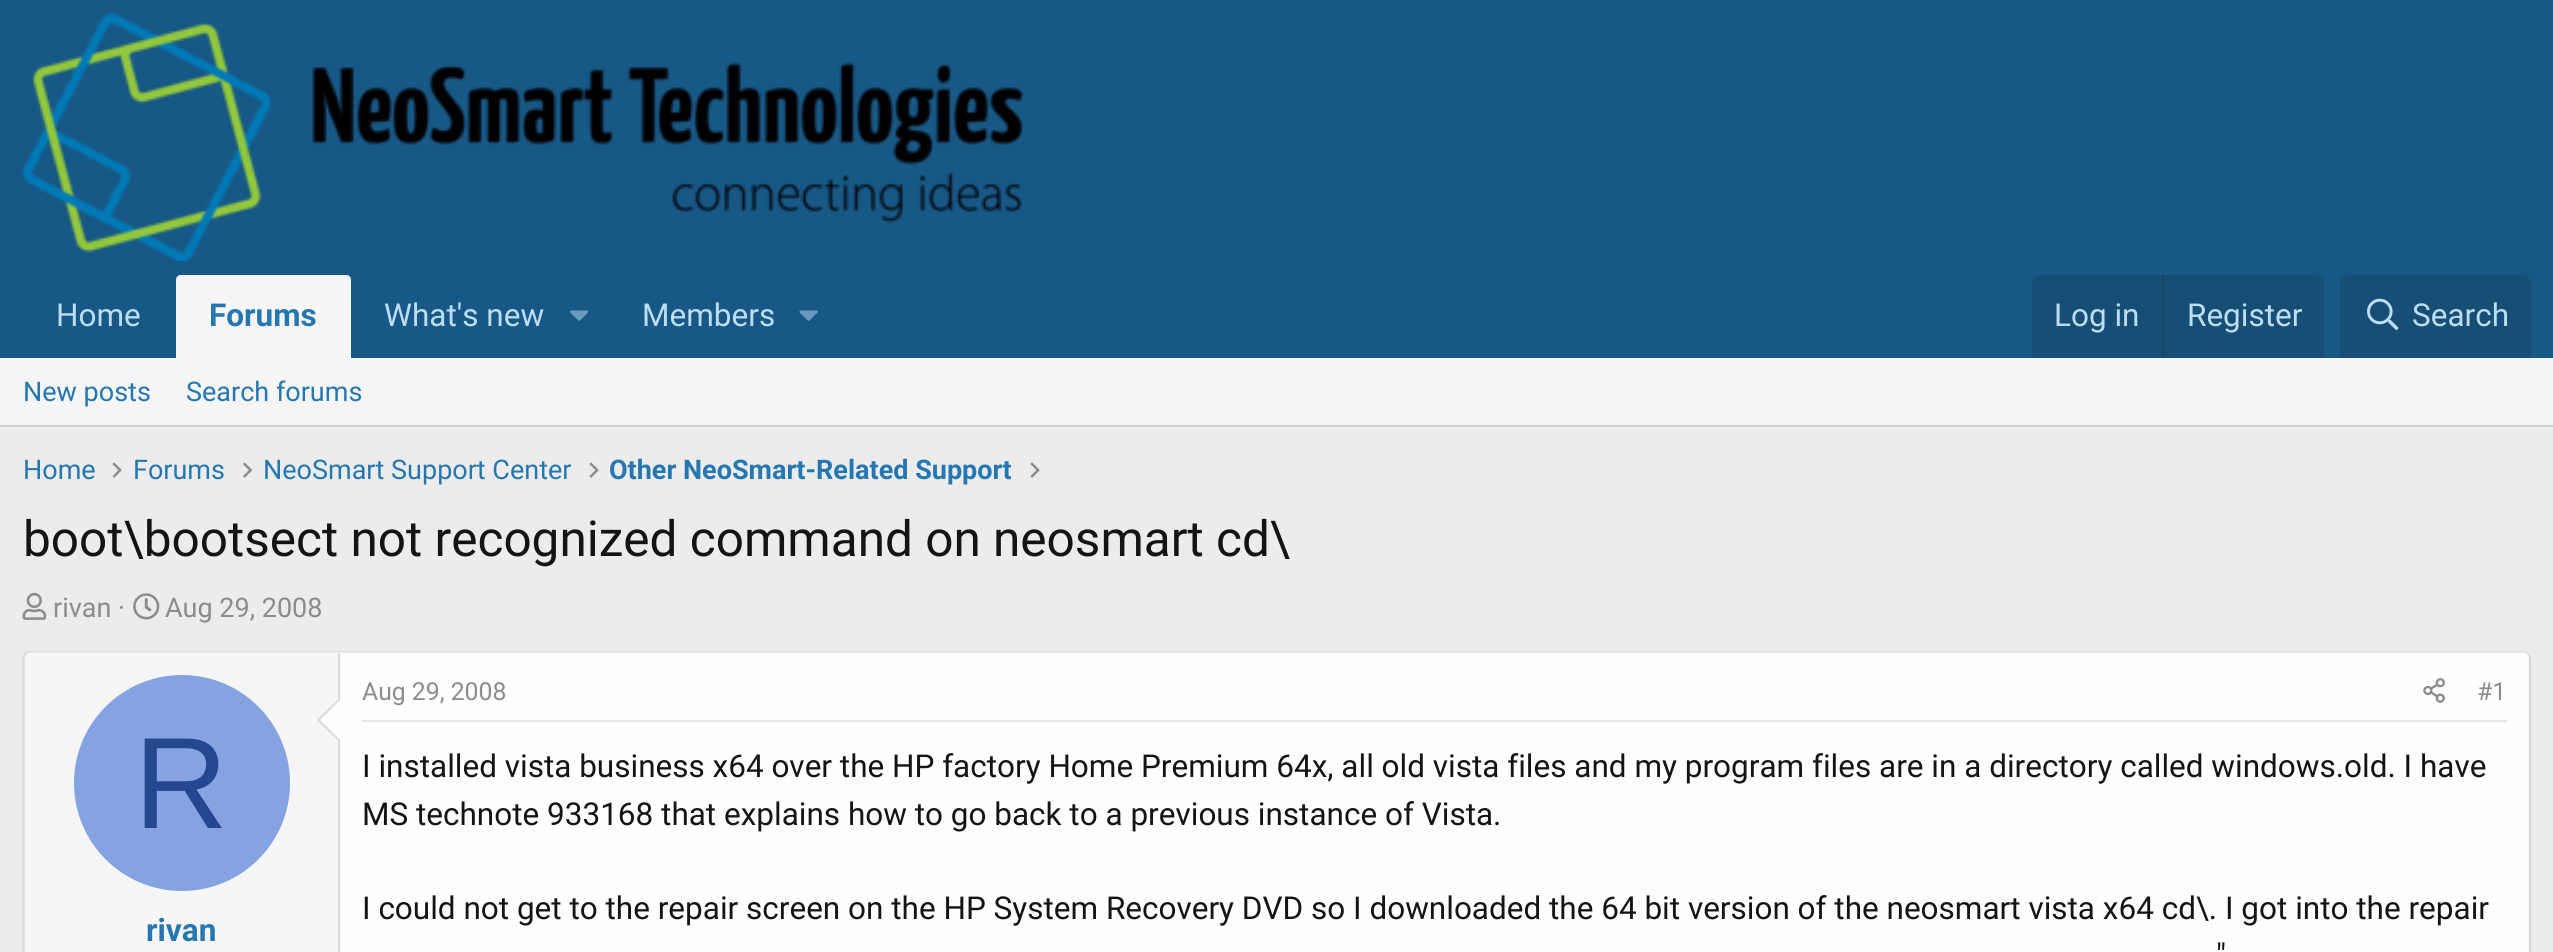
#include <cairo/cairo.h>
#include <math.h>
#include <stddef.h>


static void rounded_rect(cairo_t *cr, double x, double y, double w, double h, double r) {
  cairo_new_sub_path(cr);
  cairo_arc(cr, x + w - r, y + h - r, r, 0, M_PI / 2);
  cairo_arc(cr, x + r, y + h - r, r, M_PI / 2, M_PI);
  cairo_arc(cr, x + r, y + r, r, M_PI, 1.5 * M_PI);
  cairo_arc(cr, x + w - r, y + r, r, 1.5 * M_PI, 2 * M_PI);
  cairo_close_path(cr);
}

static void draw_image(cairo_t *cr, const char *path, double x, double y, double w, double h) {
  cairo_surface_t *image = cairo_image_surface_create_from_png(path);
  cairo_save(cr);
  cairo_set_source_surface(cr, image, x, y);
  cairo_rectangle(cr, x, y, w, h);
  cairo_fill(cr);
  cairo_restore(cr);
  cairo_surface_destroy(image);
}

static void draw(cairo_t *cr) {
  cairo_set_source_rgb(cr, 236 / 255.0, 236 / 255.0, 236 / 255.0);
  cairo_paint(cr);
  cairo_set_source_rgb(cr, 24 / 255.0, 88 / 255.0, 134 / 255.0);
  cairo_rectangle(cr, 0, 0, 2553, 358);
  cairo_fill(cr);
  draw_image(cr, "images/1.png", 22, 13, 1002, 248);
  cairo_set_source_rgb(cr, 245 / 255.0, 245 / 255.0, 245 / 255.0);
  cairo_new_path(cr);
  cairo_move_to(cr, 181, 275);
  cairo_line_to(cr, 346, 275);
  cairo_curve_to(cr, 349, 275, 351, 277, 351, 280);
  cairo_line_to(cr, 351, 358);
  cairo_line_to(cr, 176, 358);
  cairo_line_to(cr, 176, 280);
  cairo_curve_to(cr, 176, 277, 178, 275, 181, 275);
  cairo_close_path(cr);
  cairo_fill(cr);
  draw_image(cr, "images/2.png", 570, 310, 19, 11);
  draw_image(cr, "images/3.png", 799, 310, 19, 11);
  cairo_set_source_rgb(cr, 23 / 255.0, 78 / 255.0, 117 / 255.0);
  cairo_new_path(cr);
  cairo_move_to(cr, 2041, 275);
  cairo_line_to(cr, 2315, 275);
  cairo_curve_to(cr, 2320, 275, 2324, 279, 2324, 284);
  cairo_line_to(cr, 2324, 358);
  cairo_line_to(cr, 2032, 358);
  cairo_line_to(cr, 2032, 284);
  cairo_curve_to(cr, 2032, 279, 2036, 275, 2041, 275);
  cairo_close_path(cr);
  cairo_fill(cr);
  cairo_set_source_rgb(cr, 23 / 255.0, 69 / 255.0, 102 / 255.0);
  cairo_rectangle(cr, 2162, 275, 2, 83);
  cairo_fill(cr);
  cairo_set_source_rgb(cr, 23 / 255.0, 78 / 255.0, 117 / 255.0);
  cairo_new_path(cr);
  cairo_move_to(cr, 2349, 275);
  cairo_line_to(cr, 2522, 275);
  cairo_curve_to(cr, 2527, 275, 2531, 279, 2531, 284);
  cairo_line_to(cr, 2531, 358);
  cairo_line_to(cr, 2340, 358);
  cairo_line_to(cr, 2340, 284);
  cairo_curve_to(cr, 2340, 279, 2344, 275, 2349, 275);
  cairo_close_path(cr);
  cairo_fill(cr);
  draw_image(cr, "images/4.png", 2367, 298, 32, 33);
  cairo_set_source_rgb(cr, 245 / 255.0, 245 / 255.0, 245 / 255.0);
  cairo_rectangle(cr, 0, 358, 2553, 70);
  cairo_fill(cr);
  cairo_set_source_rgb(cr, 203 / 255.0, 203 / 255.0, 203 / 255.0);
  cairo_rectangle(cr, 0, 425, 2553, 2);
  cairo_fill(cr);
  draw_image(cr, "images/5.png", 112, 462, 10, 16);
  draw_image(cr, "images/6.png", 243, 462, 9, 16);
  draw_image(cr, "images/5.png", 589, 462, 10, 16);
  draw_image(cr, "images/5.png", 1030, 462, 10, 16);
  draw_image(cr, "images/7.png", 22, 592, 25, 28);
  draw_image(cr, "images/8.png", 133, 593, 27, 27);
  cairo_set_source_rgb(cr, 254 / 255.0, 254 / 255.0, 254 / 255.0);
  rounded_rect(cr, 23, 650, 2508, 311, 9);
  cairo_fill(cr);
  cairo_new_path(cr);
  cairo_move_to(cr, 26, 653.5);
  cairo_curve_to(cr, 27.5, 652, 29.5, 651.5, 31.5, 651.5);
  cairo_line_to(cr, 2522, 651.5);
  cairo_curve_to(cr, 2524.5, 651.5, 2526.5, 652, 2528, 653.5);
  cairo_set_source_rgb(cr, 223 / 255.0, 223 / 255.0, 223 / 255.0);
  cairo_set_line_width(cr, 2.2);
  cairo_stroke(cr);
  cairo_new_path(cr);
  cairo_move_to(cr, 2528, 653.5);
  cairo_curve_to(cr, 2529.5, 655, 2530, 657, 2530, 659);
  cairo_line_to(cr, 2530, 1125);
  cairo_curve_to(cr, 2530, 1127, 2529.5, 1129, 2528, 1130.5);
  cairo_set_source_rgb(cr, 216 / 255.0, 216 / 255.0, 216 / 255.0);
  cairo_stroke(cr);
  cairo_new_path(cr);
  cairo_move_to(cr, 26, 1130.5);
  cairo_curve_to(cr, 24.5, 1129, 23.5, 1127, 23.5, 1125);
  cairo_line_to(cr, 23.5, 659);
  cairo_curve_to(cr, 23.5, 657, 24.5, 655, 26, 653.5);
  cairo_stroke(cr);
  cairo_set_source_rgb(cr, 245 / 255.0, 245 / 255.0, 245 / 255.0);
  cairo_new_path(cr);
  cairo_move_to(cr, 32, 653);
  cairo_line_to(cr, 340, 653);
  cairo_line_to(cr, 340, 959);
  cairo_line_to(cr, 32, 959);
  cairo_curve_to(cr, 28, 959, 25, 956, 25, 952);
  cairo_line_to(cr, 25, 660);
  cairo_curve_to(cr, 25, 656, 28, 653, 32, 653);
  cairo_close_path(cr);
  cairo_fill(cr);
  cairo_set_source_rgb(cr, 216 / 255.0, 216 / 255.0, 216 / 255.0);
  cairo_rectangle(cr, 338, 653, 2, 299);
  cairo_fill(cr);
  cairo_new_path(cr);
  cairo_move_to(cr, 340, 698);
  cairo_line_to(cr, 340, 742);
  cairo_line_to(cr, 317, 720);
  cairo_close_path(cr);
  cairo_fill(cr);
  cairo_set_source_rgb(cr, 254 / 255.0, 254 / 255.0, 254 / 255.0);
  cairo_new_path(cr);
  cairo_move_to(cr, 340, 700);
  cairo_line_to(cr, 340, 740);
  cairo_line_to(cr, 320, 720);
  cairo_close_path(cr);
  cairo_fill(cr);
  cairo_set_source_rgb(cr, 133 / 255.0, 163 / 255.0, 224 / 255.0);
  cairo_arc(cr, 182, 783, 108, 0, 2 * M_PI);
  cairo_fill(cr);
  cairo_set_source_rgb(cr, 231 / 255.0, 231 / 255.0, 231 / 255.0);
  cairo_rectangle(cr, 362, 720, 2145, 2);
  cairo_fill(cr);
  draw_image(cr, "images/9.png", 2423, 678, 22, 25);
  cairo_select_font_face(cr, "Roboto", CAIRO_FONT_SLANT_NORMAL, CAIRO_FONT_WEIGHT_NORMAL);
  cairo_set_font_size(cr, 31.5);
  cairo_set_source_rgb(cr, 188 / 255.0, 222 / 255.0, 245 / 255.0);
  cairo_move_to(cr, 56, 326);
  cairo_show_text(cr, "Home");
  cairo_select_font_face(cr, "Roboto", CAIRO_FONT_SLANT_NORMAL, CAIRO_FONT_WEIGHT_BOLD);
  cairo_set_source_rgb(cr, 37 / 255.0, 119 / 255.0, 177 / 255.0);
  cairo_move_to(cr, 209, 326);
  cairo_show_text(cr, "Forums");
  cairo_select_font_face(cr, "Roboto", CAIRO_FONT_SLANT_NORMAL, CAIRO_FONT_WEIGHT_NORMAL);
  cairo_set_source_rgb(cr, 188 / 255.0, 222 / 255.0, 245 / 255.0);
  cairo_move_to(cr, 384, 326);
  cairo_show_text(cr, "What's new");
  cairo_move_to(cr, 642, 326);
  cairo_show_text(cr, "Members");
  cairo_move_to(cr, 2054, 326);
  cairo_show_text(cr, "Log in");
  cairo_move_to(cr, 2187, 326);
  cairo_show_text(cr, "Register");
  cairo_move_to(cr, 2412, 326);
  cairo_show_text(cr, "Search");
  cairo_set_font_size(cr, 27);
  cairo_set_source_rgb(cr, 37 / 255.0, 119 / 255.0, 177 / 255.0);
  cairo_move_to(cr, 23, 401);
  cairo_show_text(cr, "New posts");
  cairo_move_to(cr, 186, 401);
  cairo_show_text(cr, "Search forums");
  cairo_move_to(cr, 23, 479);
  cairo_show_text(cr, "Home");
  cairo_move_to(cr, 133, 479);
  cairo_show_text(cr, "Forums");
  cairo_move_to(cr, 263, 479);
  cairo_show_text(cr, "NeoSmart Support Center");
  cairo_select_font_face(cr, "Roboto", CAIRO_FONT_SLANT_NORMAL, CAIRO_FONT_WEIGHT_BOLD);
  cairo_move_to(cr, 609, 479);
  cairo_show_text(cr, "Other NeoSmart-Related Support");
  cairo_select_font_face(cr, "Roboto", CAIRO_FONT_SLANT_NORMAL, CAIRO_FONT_WEIGHT_NORMAL);
  cairo_set_font_size(cr, 49.5);
  cairo_set_source_rgb(cr, 20 / 255.0, 20 / 255.0, 20 / 255.0);
  cairo_move_to(cr, 23, 556);
  cairo_show_text(cr, "boot\\bootsect not recognized command on neosmart cd\\");
  cairo_set_font_size(cr, 27);
  cairo_set_source_rgb(cr, 140 / 255.0, 140 / 255.0, 140 / 255.0);
  cairo_move_to(cr, 53, 617);
  cairo_show_text(cr, "rivan ·");
  cairo_move_to(cr, 165, 617);
  cairo_show_text(cr, "Aug 29, 2008");
  cairo_select_font_face(cr, "Liberation Sans", CAIRO_FONT_SLANT_NORMAL, CAIRO_FONT_WEIGHT_NORMAL);
  cairo_set_font_size(cr, 130);
  cairo_set_source_rgb(cr, 36 / 255.0, 71 / 255.0, 143 / 255.0);
  cairo_move_to(cr, 134, 828);
  cairo_show_text(cr, "R");
  cairo_select_font_face(cr, "Roboto", CAIRO_FONT_SLANT_NORMAL, CAIRO_FONT_WEIGHT_BOLD);
  cairo_set_font_size(cr, 31.5);
  cairo_set_source_rgb(cr, 37 / 255.0, 119 / 255.0, 177 / 255.0);
  cairo_move_to(cr, 146, 941);
  cairo_show_text(cr, "rivan");
  cairo_select_font_face(cr, "Roboto", CAIRO_FONT_SLANT_NORMAL, CAIRO_FONT_WEIGHT_NORMAL);
  cairo_set_font_size(cr, 24.75);
  cairo_set_source_rgb(cr, 140 / 255.0, 140 / 255.0, 140 / 255.0);
  cairo_move_to(cr, 362, 700);
  cairo_show_text(cr, "Aug 29, 2008");
  cairo_move_to(cr, 2477, 700);
  cairo_show_text(cr, "#1");
  cairo_set_font_size(cr, 31.5);
  cairo_set_source_rgb(cr, 20 / 255.0, 20 / 255.0, 20 / 255.0);
  cairo_move_to(cr, 362, 777);
  cairo_show_text(cr, "I installed vista business x64 over the HP factory Home Premium 64x, all old vista files and my program files are in a directory called windows.old. I have");
  cairo_move_to(cr, 362, 825);
  cairo_show_text(cr, "MS technote 933168 that explains how to go back to a previous instance of Vista.");
  cairo_move_to(cr, 362, 919);
  cairo_show_text(cr, "I could not get to the repair screen on the HP System Recovery DVD so I downloaded the 64 bit version of the neosmart vista x64 cd\\. I got into the repair");
  cairo_move_to(cr, 2216, 966);
  cairo_show_text(cr, "\"");
}

int main(void) {
  cairo_surface_t *surface = cairo_image_surface_create(CAIRO_FORMAT_RGB24, 2553, 952);
  cairo_t *cr = cairo_create(surface);
  cairo_font_options_t *options = cairo_font_options_create();
  cairo_font_options_set_hint_metrics(options, CAIRO_HINT_METRICS_OFF);
  cairo_font_options_set_hint_style(options, CAIRO_HINT_STYLE_NONE);
  cairo_set_font_options(cr, options);
  cairo_set_miter_limit(cr, 4);
  draw(cr);
  cairo_surface_write_to_png(surface, "out.png");
  cairo_font_options_destroy(options);
  cairo_destroy(cr);
  cairo_surface_destroy(surface);
  return 0;
}
